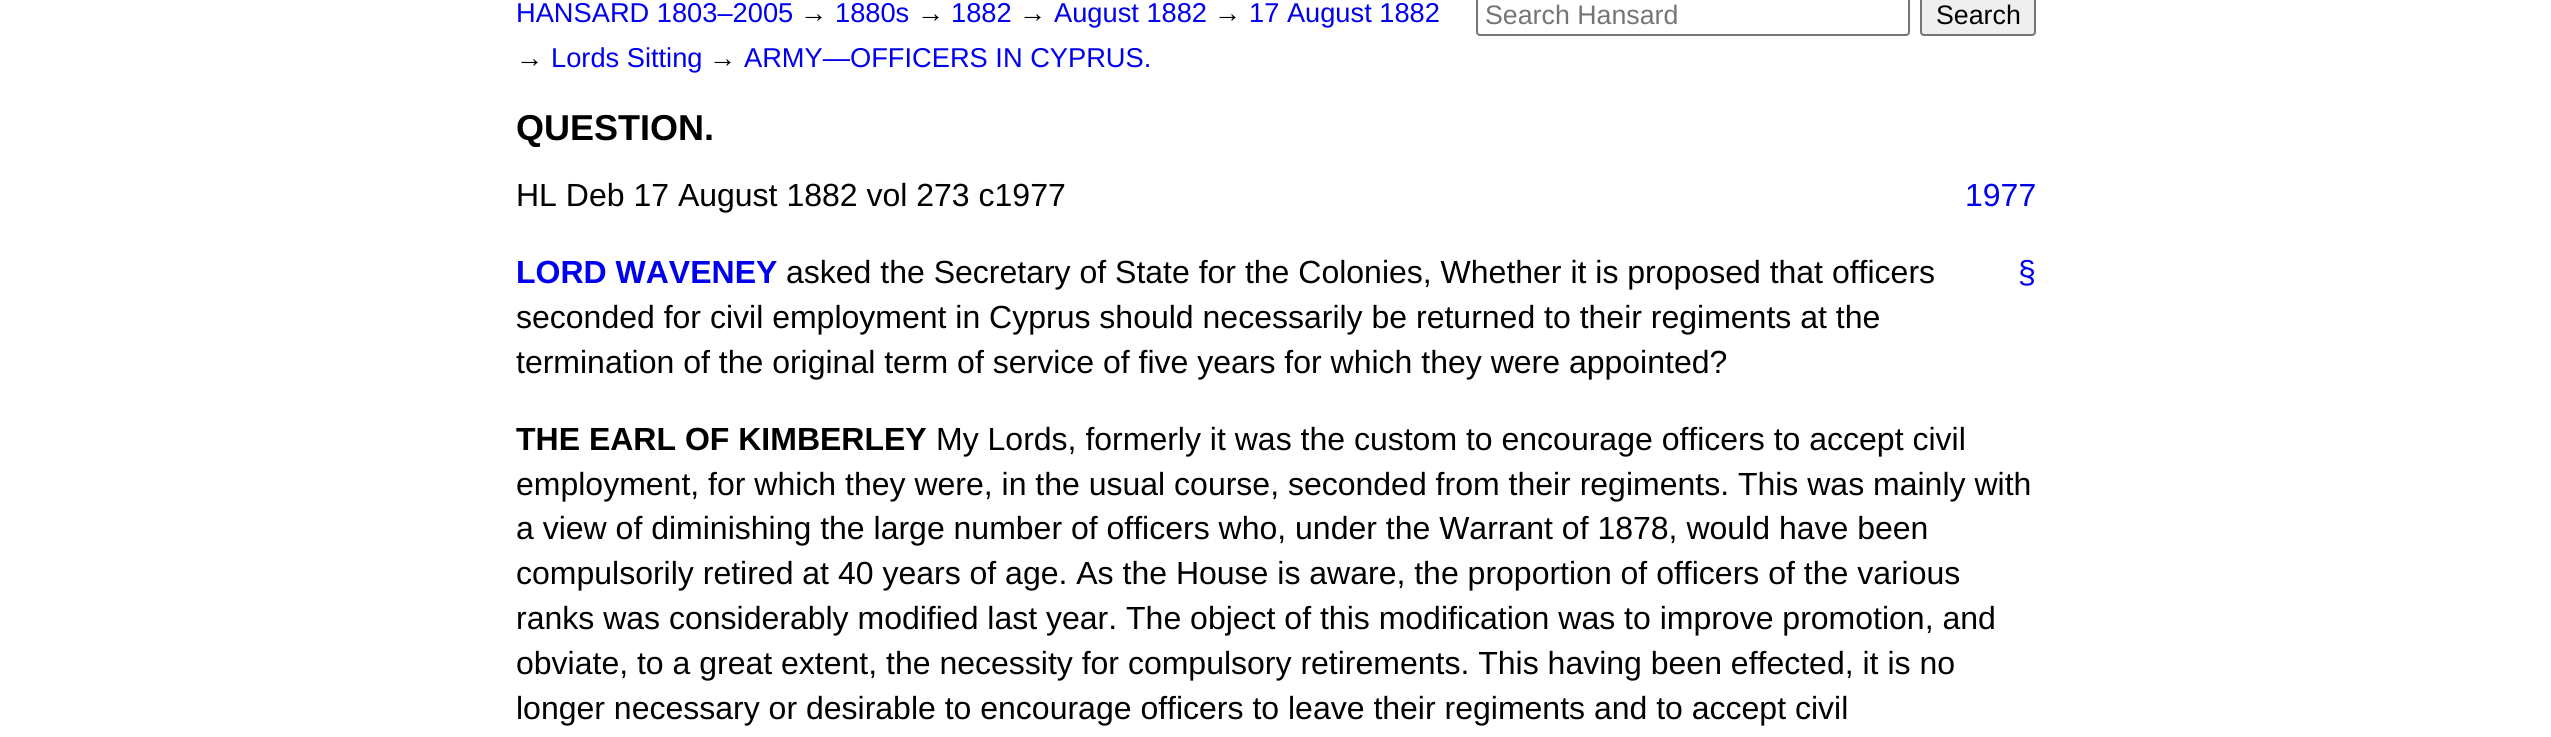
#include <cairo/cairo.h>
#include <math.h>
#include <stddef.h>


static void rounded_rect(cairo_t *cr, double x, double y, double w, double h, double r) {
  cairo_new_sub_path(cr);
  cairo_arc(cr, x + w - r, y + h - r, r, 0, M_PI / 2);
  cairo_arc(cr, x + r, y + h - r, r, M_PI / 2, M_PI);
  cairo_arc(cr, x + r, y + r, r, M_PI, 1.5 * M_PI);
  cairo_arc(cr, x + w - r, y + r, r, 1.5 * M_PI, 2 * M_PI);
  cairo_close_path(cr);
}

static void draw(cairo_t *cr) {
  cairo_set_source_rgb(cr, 1, 1, 1);
  cairo_paint(cr);
  rounded_rect(cr, 1477, -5, 432, 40, 3);
  cairo_set_source_rgb(cr, 118 / 255.0, 118 / 255.0, 118 / 255.0);
  cairo_stroke(cr);
  cairo_set_source_rgb(cr, 239 / 255.0, 239 / 255.0, 239 / 255.0);
  rounded_rect(cr, 1921, -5, 114, 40, 3);
  cairo_fill_preserve(cr);
  cairo_set_source_rgb(cr, 118 / 255.0, 118 / 255.0, 118 / 255.0);
  cairo_stroke(cr);
  cairo_select_font_face(cr, "Liberation Sans", CAIRO_FONT_SLANT_NORMAL, CAIRO_FONT_WEIGHT_NORMAL);
  cairo_set_font_size(cr, 27.25);
  cairo_set_source_rgb(cr, 0, 0, 238 / 255.0);
  cairo_move_to(cr, 516, 22);
  cairo_show_text(cr, "HANSARD 1803–2005");
  cairo_set_source_rgb(cr, 0, 0, 0);
  cairo_move_to(cr, 800, 22);
  cairo_show_text(cr, "→");
  cairo_set_source_rgb(cr, 0, 0, 238 / 255.0);
  cairo_move_to(cr, 835, 22);
  cairo_show_text(cr, "1880s");
  cairo_set_source_rgb(cr, 0, 0, 0);
  cairo_move_to(cr, 917, 22);
  cairo_show_text(cr, "→");
  cairo_set_source_rgb(cr, 0, 0, 238 / 255.0);
  cairo_move_to(cr, 951, 22);
  cairo_show_text(cr, "1882");
  cairo_set_source_rgb(cr, 0, 0, 0);
  cairo_move_to(cr, 1019, 22);
  cairo_show_text(cr, "→");
  cairo_set_source_rgb(cr, 0, 0, 238 / 255.0);
  cairo_move_to(cr, 1054, 22);
  cairo_show_text(cr, "August 1882");
  cairo_set_source_rgb(cr, 0, 0, 0);
  cairo_move_to(cr, 1214, 22);
  cairo_show_text(cr, "→");
  cairo_set_source_rgb(cr, 0, 0, 238 / 255.0);
  cairo_move_to(cr, 1249, 22);
  cairo_show_text(cr, "17 August 1882");
  cairo_set_source_rgb(cr, 0, 0, 0);
  cairo_move_to(cr, 516, 67);
  cairo_show_text(cr, "→");
  cairo_set_source_rgb(cr, 0, 0, 238 / 255.0);
  cairo_move_to(cr, 551, 67);
  cairo_show_text(cr, "Lords Sitting");
  cairo_set_source_rgb(cr, 0, 0, 0);
  cairo_move_to(cr, 709, 67);
  cairo_show_text(cr, "→");
  cairo_set_source_rgb(cr, 0, 0, 238 / 255.0);
  cairo_move_to(cr, 744, 67);
  cairo_show_text(cr, "ARMY—OFFICERS IN CYPRUS.");
  cairo_set_font_size(cr, 26.75);
  cairo_set_source_rgb(cr, 117 / 255.0, 117 / 255.0, 117 / 255.0);
  cairo_move_to(cr, 1485, 24);
  cairo_show_text(cr, "Search Hansard");
  cairo_set_source_rgb(cr, 0, 0, 0);
  cairo_move_to(cr, 1936, 24);
  cairo_show_text(cr, "Search");
  cairo_select_font_face(cr, "Liberation Sans", CAIRO_FONT_SLANT_NORMAL, CAIRO_FONT_WEIGHT_BOLD);
  cairo_set_font_size(cr, 36);
  cairo_move_to(cr, 516, 140);
  cairo_show_text(cr, "QUESTION.");
  cairo_select_font_face(cr, "Liberation Sans", CAIRO_FONT_SLANT_NORMAL, CAIRO_FONT_WEIGHT_NORMAL);
  cairo_set_font_size(cr, 32);
  cairo_move_to(cr, 516, 206);
  cairo_show_text(cr, "HL Deb 17 August 1882 vol 273 c1977");
  cairo_set_source_rgb(cr, 0, 0, 238 / 255.0);
  cairo_move_to(cr, 1965, 206);
  cairo_show_text(cr, "1977");
  cairo_select_font_face(cr, "Liberation Sans", CAIRO_FONT_SLANT_NORMAL, CAIRO_FONT_WEIGHT_BOLD);
  cairo_move_to(cr, 516, 283);
  cairo_show_text(cr, "LORD WAVENEY");
  cairo_select_font_face(cr, "Liberation Sans", CAIRO_FONT_SLANT_NORMAL, CAIRO_FONT_WEIGHT_NORMAL);
  cairo_set_source_rgb(cr, 0, 0, 0);
  cairo_move_to(cr, 786, 283);
  cairo_show_text(cr, "asked the Secretary of State for the Colonies, Whether it is proposed that officers");
  cairo_set_source_rgb(cr, 0, 0, 238 / 255.0);
  cairo_move_to(cr, 2018, 283);
  cairo_show_text(cr, "§");
  cairo_set_source_rgb(cr, 0, 0, 0);
  cairo_move_to(cr, 516, 328);
  cairo_show_text(cr, "seconded for civil employment in Cyprus should necessarily be returned to their regiments at the");
  cairo_move_to(cr, 516, 373);
  cairo_show_text(cr, "termination of the original term of service of five years for which they were appointed?");
  cairo_select_font_face(cr, "Liberation Sans", CAIRO_FONT_SLANT_NORMAL, CAIRO_FONT_WEIGHT_BOLD);
  cairo_move_to(cr, 516, 450);
  cairo_show_text(cr, "THE EARL OF KIMBERLEY");
  cairo_select_font_face(cr, "Liberation Sans", CAIRO_FONT_SLANT_NORMAL, CAIRO_FONT_WEIGHT_NORMAL);
  cairo_move_to(cr, 936, 450);
  cairo_show_text(cr, "My Lords, formerly it was the custom to encourage officers to accept civil");
  cairo_move_to(cr, 516, 495);
  cairo_show_text(cr, "employment, for which they were, in the usual course, seconded from their regiments. This was mainly with");
  cairo_move_to(cr, 516, 539);
  cairo_show_text(cr, "a view of diminishing the large number of officers who, under the Warrant of 1878, would have been");
  cairo_move_to(cr, 516, 584);
  cairo_show_text(cr, "compulsorily retired at 40 years of age. As the House is aware, the proportion of officers of the various");
  cairo_move_to(cr, 516, 629);
  cairo_show_text(cr, "ranks was considerably modified last year. The object of this modification was to improve promotion, and");
  cairo_move_to(cr, 516, 674);
  cairo_show_text(cr, "obviate, to a great extent, the necessity for compulsory retirements. This having been effected, it is no");
  cairo_move_to(cr, 516, 719);
  cairo_show_text(cr, "longer necessary or desirable to encourage officers to leave their regiments and to accept civil");
}

int main(void) {
  cairo_surface_t *surface = cairo_image_surface_create(CAIRO_FORMAT_RGB24, 2551, 737);
  cairo_t *cr = cairo_create(surface);
  cairo_font_options_t *options = cairo_font_options_create();
  cairo_font_options_set_hint_metrics(options, CAIRO_HINT_METRICS_OFF);
  cairo_font_options_set_hint_style(options, CAIRO_HINT_STYLE_NONE);
  cairo_set_font_options(cr, options);
  cairo_set_miter_limit(cr, 4);
  draw(cr);
  cairo_surface_write_to_png(surface, "out.png");
  cairo_font_options_destroy(options);
  cairo_destroy(cr);
  cairo_surface_destroy(surface);
  return 0;
}
